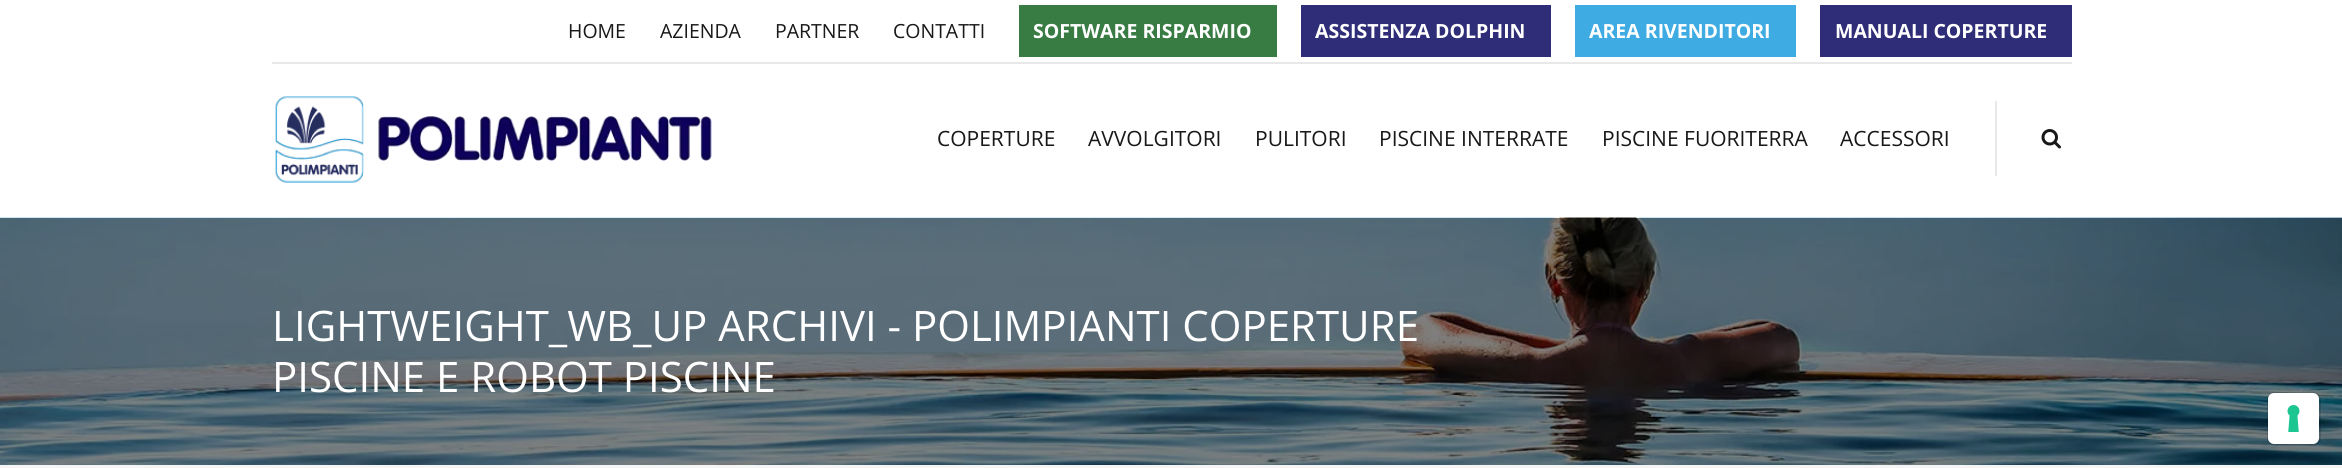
#include <cairo/cairo.h>
#include <math.h>
#include <stddef.h>


static void rounded_rect(cairo_t *cr, double x, double y, double w, double h, double r) {
  cairo_new_sub_path(cr);
  cairo_arc(cr, x + w - r, y + h - r, r, 0, M_PI / 2);
  cairo_arc(cr, x + r, y + h - r, r, M_PI / 2, M_PI);
  cairo_arc(cr, x + r, y + r, r, M_PI, 1.5 * M_PI);
  cairo_arc(cr, x + w - r, y + r, r, 1.5 * M_PI, 2 * M_PI);
  cairo_close_path(cr);
}

static void draw_image(cairo_t *cr, const char *path, double x, double y, double w, double h) {
  cairo_surface_t *image = cairo_image_surface_create_from_png(path);
  cairo_save(cr);
  cairo_set_source_surface(cr, image, x, y);
  cairo_rectangle(cr, x, y, w, h);
  cairo_fill(cr);
  cairo_restore(cr);
  cairo_surface_destroy(image);
}

static void draw(cairo_t *cr) {
  cairo_set_source_rgb(cr, 1, 1, 1);
  cairo_paint(cr);
  cairo_set_source_rgb(cr, 232 / 255.0, 232 / 255.0, 232 / 255.0);
  cairo_rectangle(cr, 272, 62, 1800, 2);
  cairo_fill(cr);
  cairo_set_source_rgb(cr, 56 / 255.0, 124 / 255.0, 68 / 255.0);
  cairo_rectangle(cr, 1019, 5, 258, 52);
  cairo_fill(cr);
  cairo_set_source_rgb(cr, 47 / 255.0, 45 / 255.0, 119 / 255.0);
  cairo_rectangle(cr, 1301, 5, 250, 52);
  cairo_fill(cr);
  cairo_set_source_rgb(cr, 62 / 255.0, 171 / 255.0, 226 / 255.0);
  cairo_rectangle(cr, 1575, 5, 221, 52);
  cairo_fill(cr);
  cairo_set_source_rgb(cr, 47 / 255.0, 45 / 255.0, 119 / 255.0);
  cairo_rectangle(cr, 1820, 5, 252, 52);
  cairo_fill(cr);
  draw_image(cr, "images/1.png", 275, 96, 437, 87);
  cairo_set_source_rgb(cr, 232 / 255.0, 232 / 255.0, 232 / 255.0);
  cairo_rectangle(cr, 1995, 101, 2, 75);
  cairo_fill(cr);
  draw_image(cr, "images/2.png", 2041, 129, 20, 20);
  draw_image(cr, "images/3.png", 0, 217, 2342, 248);
  cairo_set_source_rgb(cr, 245 / 255.0, 245 / 255.0, 245 / 255.0);
  cairo_rectangle(cr, 0, 465, 2342, 3);
  cairo_fill(cr);
  rounded_rect(cr, 2268, 393, 52, 52, 7);
  cairo_set_source_rgba(cr, 0, 0, 0, 0.15);
  cairo_stroke(cr);
  cairo_set_source_rgb(cr, 1, 1, 1);
  rounded_rect(cr, 2268, 393, 51, 51, 6);
  cairo_fill(cr);
  draw_image(cr, "images/4.png", 2287, 405, 13, 27);
  cairo_select_font_face(cr, "Open Sans", CAIRO_FONT_SLANT_NORMAL, CAIRO_FONT_WEIGHT_NORMAL);
  cairo_set_font_size(cr, 19.5);
  cairo_set_source_rgb(cr, 24 / 255.0, 24 / 255.0, 24 / 255.0);
  cairo_move_to(cr, 568, 38);
  cairo_show_text(cr, "HOME");
  cairo_move_to(cr, 660, 38);
  cairo_show_text(cr, "AZIENDA");
  cairo_move_to(cr, 775, 38);
  cairo_show_text(cr, "PARTNER");
  cairo_move_to(cr, 893, 38);
  cairo_show_text(cr, "CONTATTI");
  cairo_select_font_face(cr, "Open Sans", CAIRO_FONT_SLANT_NORMAL, CAIRO_FONT_WEIGHT_BOLD);
  cairo_set_source_rgb(cr, 1, 1, 1);
  cairo_move_to(cr, 1033, 38);
  cairo_show_text(cr, "SOFTWARE RISPARMIO");
  cairo_move_to(cr, 1315, 38);
  cairo_show_text(cr, "ASSISTENZA DOLPHIN");
  cairo_move_to(cr, 1589, 38);
  cairo_show_text(cr, "AREA RIVENDITORI");
  cairo_move_to(cr, 1835, 38);
  cairo_show_text(cr, "MANUALI COPERTURE");
  cairo_select_font_face(cr, "Open Sans", CAIRO_FONT_SLANT_NORMAL, CAIRO_FONT_WEIGHT_NORMAL);
  cairo_set_font_size(cr, 21);
  cairo_set_source_rgb(cr, 24 / 255.0, 24 / 255.0, 24 / 255.0);
  cairo_move_to(cr, 937, 146);
  cairo_show_text(cr, "COPERTURE");
  cairo_move_to(cr, 1088, 146);
  cairo_show_text(cr, "AVVOLGITORI");
  cairo_move_to(cr, 1255, 146);
  cairo_show_text(cr, "PULITORI");
  cairo_move_to(cr, 1379, 146);
  cairo_show_text(cr, "PISCINE INTERRATE");
  cairo_move_to(cr, 1602, 146);
  cairo_show_text(cr, "PISCINE FUORITERRA");
  cairo_move_to(cr, 1840, 146);
  cairo_show_text(cr, "ACCESSORI");
  cairo_set_font_size(cr, 42);
  cairo_set_source_rgb(cr, 1, 1, 1);
  cairo_move_to(cr, 272, 341);
  cairo_show_text(cr, "LIGHTWEIGHT_WB_UP ARCHIVI - POLIMPIANTI COPERTURE");
  cairo_move_to(cr, 272, 392);
  cairo_show_text(cr, "PISCINE E ROBOT PISCINE");
}

int main(void) {
  cairo_surface_t *surface = cairo_image_surface_create(CAIRO_FORMAT_RGB24, 2342, 468);
  cairo_t *cr = cairo_create(surface);
  cairo_font_options_t *options = cairo_font_options_create();
  cairo_font_options_set_hint_metrics(options, CAIRO_HINT_METRICS_OFF);
  cairo_font_options_set_hint_style(options, CAIRO_HINT_STYLE_NONE);
  cairo_set_font_options(cr, options);
  cairo_set_miter_limit(cr, 4);
  draw(cr);
  cairo_surface_write_to_png(surface, "out.png");
  cairo_font_options_destroy(options);
  cairo_destroy(cr);
  cairo_surface_destroy(surface);
  return 0;
}
